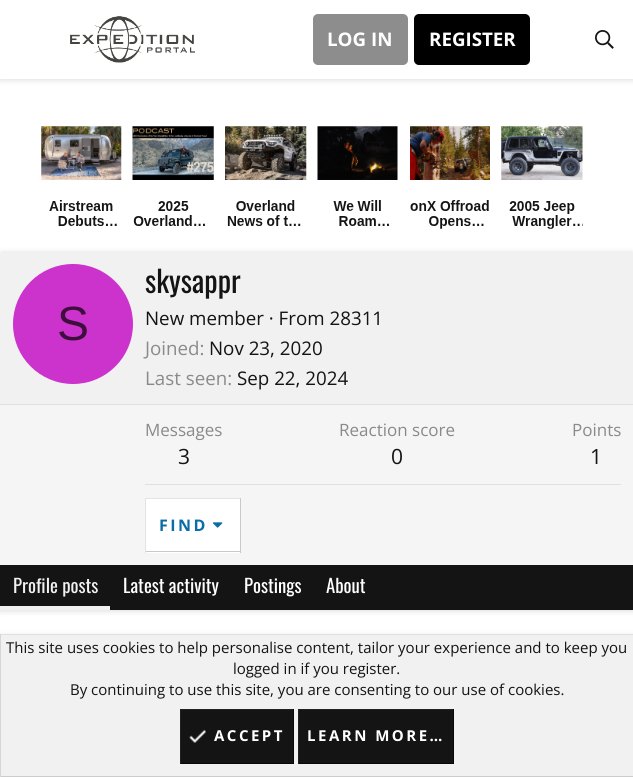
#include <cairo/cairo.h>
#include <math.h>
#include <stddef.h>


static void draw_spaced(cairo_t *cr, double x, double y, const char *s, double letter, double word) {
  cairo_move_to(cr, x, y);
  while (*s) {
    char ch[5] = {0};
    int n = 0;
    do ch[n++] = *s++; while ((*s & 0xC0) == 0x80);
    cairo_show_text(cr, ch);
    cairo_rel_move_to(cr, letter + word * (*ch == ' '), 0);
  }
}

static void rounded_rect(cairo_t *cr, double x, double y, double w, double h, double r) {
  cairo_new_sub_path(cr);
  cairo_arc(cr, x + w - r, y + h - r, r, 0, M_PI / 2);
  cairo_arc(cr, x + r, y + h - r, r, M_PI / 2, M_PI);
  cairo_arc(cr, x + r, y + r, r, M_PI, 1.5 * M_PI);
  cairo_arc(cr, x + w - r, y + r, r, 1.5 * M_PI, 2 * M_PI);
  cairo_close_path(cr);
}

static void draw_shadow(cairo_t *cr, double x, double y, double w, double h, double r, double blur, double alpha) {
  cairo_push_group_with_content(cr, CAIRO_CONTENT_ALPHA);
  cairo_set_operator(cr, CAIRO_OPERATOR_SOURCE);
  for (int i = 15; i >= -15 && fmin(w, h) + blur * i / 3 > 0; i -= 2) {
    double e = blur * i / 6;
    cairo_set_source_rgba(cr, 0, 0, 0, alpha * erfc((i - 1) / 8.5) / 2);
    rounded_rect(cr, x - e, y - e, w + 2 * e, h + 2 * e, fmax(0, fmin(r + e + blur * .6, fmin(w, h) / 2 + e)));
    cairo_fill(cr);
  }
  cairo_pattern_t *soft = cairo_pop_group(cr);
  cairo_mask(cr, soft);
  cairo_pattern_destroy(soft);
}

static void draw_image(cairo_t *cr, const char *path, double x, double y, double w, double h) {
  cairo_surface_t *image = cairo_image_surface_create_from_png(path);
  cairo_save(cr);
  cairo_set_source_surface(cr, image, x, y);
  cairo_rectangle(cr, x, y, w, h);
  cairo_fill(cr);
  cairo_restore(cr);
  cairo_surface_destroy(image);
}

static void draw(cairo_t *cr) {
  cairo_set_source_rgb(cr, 1, 1, 1);
  cairo_paint(cr);
  cairo_set_source_rgb(cr, 185 / 255.0, 185 / 255.0, 185 / 255.0);
  draw_shadow(cr, 0, 1, 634, 79, 0, 3, 0.5);
  cairo_set_source_rgb(cr, 1, 1, 1);
  cairo_rectangle(cr, 0, 0, 633, 79);
  cairo_fill(cr);
  draw_image(cr, "images/1.png", 70, 16, 125, 47);
  cairo_set_source_rgb(cr, 141 / 255.0, 141 / 255.0, 141 / 255.0);
  rounded_rect(cr, 313, 14, 95, 51, 5);
  cairo_fill(cr);
  cairo_set_source_rgb(cr, 0, 0, 0);
  rounded_rect(cr, 414, 14, 116, 51, 5);
  cairo_fill(cr);
  draw_image(cr, "images/2.png", 595, 30, 19, 19);
  draw_image(cr, "images/3.png", 41, 126, 542, 103);
  cairo_set_source_rgb(cr, 185 / 255.0, 185 / 255.0, 185 / 255.0);
  draw_shadow(cr, 0, 253, 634, 358, 0, 3, 0.5);
  cairo_set_source_rgb(cr, 245 / 255.0, 245 / 255.0, 245 / 255.0);
  cairo_rectangle(cr, 0, 251, 633, 314);
  cairo_fill(cr);
  cairo_set_source_rgb(cr, 241 / 255.0, 241 / 255.0, 241 / 255.0);
  cairo_new_path(cr);
  cairo_move_to(cr, 4, 251);
  cairo_line_to(cr, 630, 251);
  cairo_curve_to(cr, 632, 251, 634, 253, 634, 255);
  cairo_line_to(cr, 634, 405);
  cairo_line_to(cr, 0, 405);
  cairo_line_to(cr, 0, 255);
  cairo_curve_to(cr, 0, 253, 2, 251, 4, 251);
  cairo_close_path(cr);
  cairo_fill(cr);
  cairo_set_source_rgb(cr, 224 / 255.0, 224 / 255.0, 224 / 255.0);
  cairo_rectangle(cr, 0, 404, 633, 1);
  cairo_fill(cr);
  cairo_set_source_rgb(cr, 204 / 255.0, 51 / 255.0, 204 / 255.0);
  cairo_arc(cr, 73, 324, 60, 0, 2 * M_PI);
  cairo_fill(cr);
  cairo_set_source_rgb(cr, 224 / 255.0, 224 / 255.0, 224 / 255.0);
  cairo_rectangle(cr, 145, 484, 476, 1);
  cairo_fill(cr);
  cairo_set_source_rgb(cr, 1, 1, 1);
  cairo_rectangle(cr, 146, 499, 94, 54);
  cairo_fill(cr);
  cairo_set_source_rgb(cr, 227 / 255.0, 227 / 255.0, 227 / 255.0);
  cairo_rectangle(cr, 145, 498, 96, 1);
  cairo_fill(cr);
  cairo_set_source_rgb(cr, 201 / 255.0, 201 / 255.0, 201 / 255.0);
  cairo_rectangle(cr, 240, 498, 1, 55);
  cairo_fill(cr);
  cairo_rectangle(cr, 145, 551, 96, 1);
  cairo_fill(cr);
  cairo_set_source_rgb(cr, 227 / 255.0, 227 / 255.0, 227 / 255.0);
  cairo_rectangle(cr, 145, 498, 1, 55);
  cairo_fill(cr);
  draw_image(cr, "images/4.png", 213, 522, 10, 6);
  cairo_set_source_rgb(cr, 20 / 255.0, 20 / 255.0, 20 / 255.0);
  cairo_rectangle(cr, 0, 565, 633, 45);
  cairo_fill(cr);
  cairo_set_source_rgb(cr, 241 / 255.0, 241 / 255.0, 241 / 255.0);
  cairo_rectangle(cr, 0, 606, 110, 4);
  cairo_fill(cr);
  cairo_set_source_rgb(cr, 185 / 255.0, 185 / 255.0, 185 / 255.0);
  draw_shadow(cr, 0, 636, 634, 42, 0, 3, 0.5);
  cairo_set_source_rgb(cr, 241 / 255.0, 241 / 255.0, 241 / 255.0);
  cairo_rectangle(cr, 1, 635, 632, 141);
  cairo_fill(cr);
  cairo_set_source_rgb(cr, 224 / 255.0, 224 / 255.0, 224 / 255.0);
  cairo_rectangle(cr, 0, 634, 633, 1);
  cairo_fill(cr);
  cairo_set_source_rgb(cr, 204 / 255.0, 204 / 255.0, 204 / 255.0);
  cairo_rectangle(cr, 0, 776, 633, 1);
  cairo_fill(cr);
  cairo_set_source_rgb(cr, 214 / 255.0, 214 / 255.0, 214 / 255.0);
  cairo_rectangle(cr, 0, 634, 1, 143);
  cairo_fill(cr);
  cairo_set_source_rgb(cr, 20 / 255.0, 20 / 255.0, 20 / 255.0);
  cairo_rectangle(cr, 181, 710, 112, 53);
  cairo_fill(cr);
  cairo_set_source_rgb(cr, 33 / 255.0, 33 / 255.0, 33 / 255.0);
  cairo_rectangle(cr, 180, 709, 114, 1);
  cairo_fill(cr);
  cairo_set_source_rgb(cr, 8 / 255.0, 8 / 255.0, 8 / 255.0);
  cairo_rectangle(cr, 293, 709, 1, 55);
  cairo_fill(cr);
  cairo_rectangle(cr, 180, 763, 114, 1);
  cairo_fill(cr);
  cairo_set_source_rgb(cr, 33 / 255.0, 33 / 255.0, 33 / 255.0);
  cairo_rectangle(cr, 180, 709, 1, 55);
  cairo_fill(cr);
  draw_image(cr, "images/5.png", 189, 729, 17, 14);
  cairo_set_source_rgb(cr, 20 / 255.0, 20 / 255.0, 20 / 255.0);
  cairo_rectangle(cr, 299, 710, 154, 53);
  cairo_fill(cr);
  cairo_set_source_rgb(cr, 33 / 255.0, 33 / 255.0, 33 / 255.0);
  cairo_rectangle(cr, 298, 709, 156, 1);
  cairo_fill(cr);
  cairo_set_source_rgb(cr, 8 / 255.0, 8 / 255.0, 8 / 255.0);
  cairo_rectangle(cr, 453, 709, 1, 55);
  cairo_fill(cr);
  cairo_rectangle(cr, 298, 763, 156, 1);
  cairo_fill(cr);
  cairo_set_source_rgb(cr, 33 / 255.0, 33 / 255.0, 33 / 255.0);
  cairo_rectangle(cr, 298, 709, 1, 55);
  cairo_fill(cr);
  cairo_select_font_face(cr, "Open Sans", CAIRO_FONT_SLANT_NORMAL, CAIRO_FONT_WEIGHT_BOLD);
  cairo_set_font_size(cr, 18.75);
  cairo_set_source_rgb(cr, 1, 1, 1);
  cairo_move_to(cr, 327, 46);
  cairo_show_text(cr, "LOG IN");
  cairo_move_to(cr, 429, 46);
  cairo_show_text(cr, "REGISTER");
  cairo_select_font_face(cr, "Liberation Sans", CAIRO_FONT_SLANT_NORMAL, CAIRO_FONT_WEIGHT_NORMAL);
  cairo_set_font_size(cr, 48);
  cairo_set_source_rgb(cr, 61 / 255.0, 15 / 255.0, 61 / 255.0);
  cairo_move_to(cr, 57, 340);
  cairo_show_text(cr, "S");
  cairo_select_font_face(cr, "Oswald", CAIRO_FONT_SLANT_NORMAL, CAIRO_FONT_WEIGHT_NORMAL);
  cairo_set_font_size(cr, 30);
  cairo_set_source_rgb(cr, 20 / 255.0, 20 / 255.0, 20 / 255.0);
  cairo_move_to(cr, 145, 293);
  cairo_show_text(cr, "skysappr");
  cairo_select_font_face(cr, "Open Sans", CAIRO_FONT_SLANT_NORMAL, CAIRO_FONT_WEIGHT_NORMAL);
  cairo_set_font_size(cr, 18.75);
  cairo_move_to(cr, 145, 325);
  cairo_show_text(cr, "New member · From 28311");
  cairo_set_source_rgb(cr, 138 / 255.0, 138 / 255.0, 138 / 255.0);
  cairo_move_to(cr, 145, 355);
  cairo_show_text(cr, "Joined:");
  cairo_set_source_rgb(cr, 20 / 255.0, 20 / 255.0, 20 / 255.0);
  cairo_move_to(cr, 209, 355);
  cairo_show_text(cr, "Nov 23, 2020");
  cairo_set_source_rgb(cr, 138 / 255.0, 138 / 255.0, 138 / 255.0);
  cairo_move_to(cr, 145, 385);
  cairo_show_text(cr, "Last seen:");
  cairo_set_source_rgb(cr, 20 / 255.0, 20 / 255.0, 20 / 255.0);
  cairo_move_to(cr, 237, 385);
  cairo_show_text(cr, "Sep 22, 2024");
  cairo_set_font_size(cr, 17);
  cairo_set_source_rgb(cr, 138 / 255.0, 138 / 255.0, 138 / 255.0);
  cairo_move_to(cr, 145, 436);
  cairo_show_text(cr, "Messages");
  cairo_set_font_size(cr, 21);
  cairo_set_source_rgb(cr, 20 / 255.0, 20 / 255.0, 20 / 255.0);
  cairo_move_to(cr, 178, 464);
  cairo_show_text(cr, "3");
  cairo_set_font_size(cr, 17);
  cairo_set_source_rgb(cr, 138 / 255.0, 138 / 255.0, 138 / 255.0);
  cairo_move_to(cr, 339, 436);
  cairo_show_text(cr, "Reaction score");
  cairo_set_font_size(cr, 21);
  cairo_set_source_rgb(cr, 20 / 255.0, 20 / 255.0, 20 / 255.0);
  cairo_move_to(cr, 391, 464);
  cairo_show_text(cr, "0");
  cairo_set_font_size(cr, 17);
  cairo_set_source_rgb(cr, 138 / 255.0, 138 / 255.0, 138 / 255.0);
  cairo_move_to(cr, 572, 436);
  cairo_show_text(cr, "Points");
  cairo_set_font_size(cr, 21);
  cairo_set_source_rgb(cr, 20 / 255.0, 20 / 255.0, 20 / 255.0);
  cairo_move_to(cr, 590, 464);
  cairo_show_text(cr, "1");
  cairo_select_font_face(cr, "Open Sans", CAIRO_FONT_SLANT_NORMAL, CAIRO_FONT_WEIGHT_BOLD);
  cairo_set_font_size(cr, 16);
  cairo_set_source_rgb(cr, 10 / 255.0, 109 / 255.0, 167 / 255.0);
  draw_spaced(cr, 159, 531, "FIND", 2.5, 0);
  cairo_select_font_face(cr, "Oswald", CAIRO_FONT_SLANT_NORMAL, CAIRO_FONT_WEIGHT_NORMAL);
  cairo_set_font_size(cr, 18.75);
  cairo_set_source_rgb(cr, 241 / 255.0, 241 / 255.0, 241 / 255.0);
  cairo_move_to(cr, 13, 593);
  cairo_show_text(cr, "Profile posts");
  cairo_set_source_rgb(cr, 1, 1, 1);
  cairo_move_to(cr, 123, 593);
  cairo_show_text(cr, "Latest activity");
  cairo_move_to(cr, 244, 593);
  cairo_show_text(cr, "Postings");
  cairo_move_to(cr, 326, 593);
  cairo_show_text(cr, "About");
  cairo_select_font_face(cr, "Open Sans", CAIRO_FONT_SLANT_NORMAL, CAIRO_FONT_WEIGHT_NORMAL);
  cairo_set_font_size(cr, 15);
  cairo_set_source_rgb(cr, 20 / 255.0, 20 / 255.0, 20 / 255.0);
  cairo_move_to(cr, 6, 653);
  cairo_show_text(cr, "This site uses cookies to help personalise content, tailor your experience and to keep you");
  cairo_move_to(cr, 233, 674);
  cairo_show_text(cr, "logged in if you register.");
  cairo_move_to(cr, 70, 695);
  cairo_show_text(cr, "By continuing to use this site, you are consenting to our use of cookies.");
  cairo_select_font_face(cr, "Open Sans", CAIRO_FONT_SLANT_NORMAL, CAIRO_FONT_WEIGHT_BOLD);
  cairo_set_source_rgb(cr, 1, 1, 1);
  draw_spaced(cr, 214, 741, "ACCEPT", 2.5, 0);
  draw_spaced(cr, 307, 741, "LEARN MORE…", 2.5, 0);
}

int main(void) {
  cairo_surface_t *surface = cairo_image_surface_create(CAIRO_FORMAT_RGB24, 633, 777);
  cairo_t *cr = cairo_create(surface);
  cairo_font_options_t *options = cairo_font_options_create();
  cairo_font_options_set_hint_metrics(options, CAIRO_HINT_METRICS_OFF);
  cairo_font_options_set_hint_style(options, CAIRO_HINT_STYLE_NONE);
  cairo_set_font_options(cr, options);
  cairo_set_miter_limit(cr, 4);
  draw(cr);
  cairo_surface_write_to_png(surface, "out.png");
  cairo_font_options_destroy(options);
  cairo_destroy(cr);
  cairo_surface_destroy(surface);
  return 0;
}
